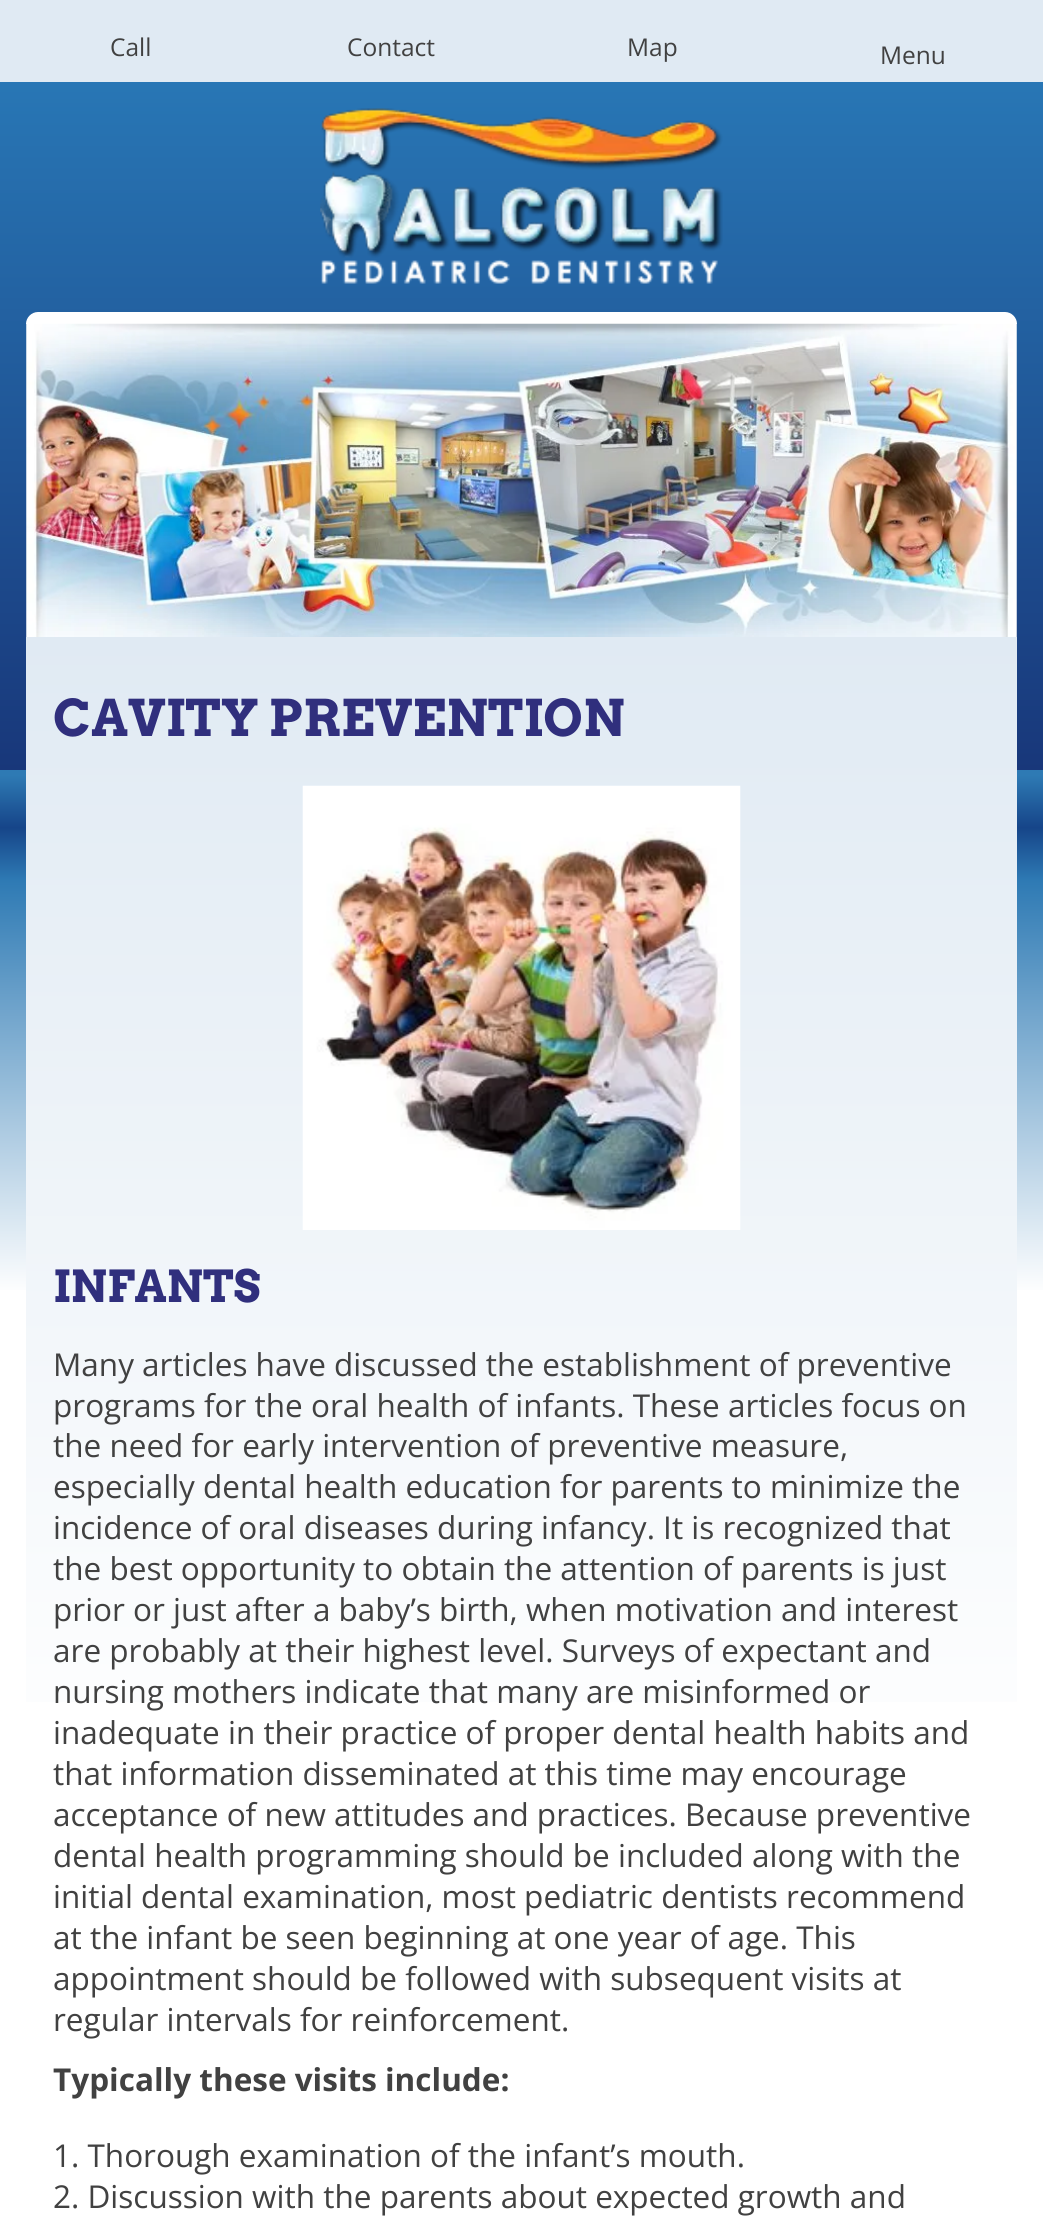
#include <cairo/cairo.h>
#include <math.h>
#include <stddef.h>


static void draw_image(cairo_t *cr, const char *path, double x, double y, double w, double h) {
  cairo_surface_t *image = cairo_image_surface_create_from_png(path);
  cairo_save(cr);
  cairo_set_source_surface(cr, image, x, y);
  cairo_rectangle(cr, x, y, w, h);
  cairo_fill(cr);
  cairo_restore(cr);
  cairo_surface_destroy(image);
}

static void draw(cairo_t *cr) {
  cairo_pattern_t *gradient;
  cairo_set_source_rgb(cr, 1, 1, 1);
  cairo_paint(cr);
  cairo_set_source_rgb(cr, 224 / 255.0, 234 / 255.0, 243 / 255.0);
  cairo_rectangle(cr, 0, 0, 1043, 82);
  cairo_fill(cr);
  gradient = cairo_pattern_create_linear(522, 0, 522, 770);
  cairo_pattern_add_color_stop_rgba(gradient, 0, 42 / 255.0, 126 / 255.0, 188 / 255.0, 1);
  cairo_pattern_add_color_stop_rgba(gradient, 1, 24 / 255.0, 55 / 255.0, 122 / 255.0, 1);
  cairo_set_source(cr, gradient);
  cairo_pattern_destroy(gradient);
  cairo_rectangle(cr, 0, 82, 1043, 688);
  cairo_fill(cr);
  draw_image(cr, "images/1.png", 320, 108, 403, 176);
  cairo_set_source_rgb(cr, 1, 1, 1);
  cairo_new_path(cr);
  cairo_move_to(cr, 38, 312);
  cairo_line_to(cr, 1005, 312);
  cairo_curve_to(cr, 1011.5, 312, 1017, 317.5, 1017, 324);
  cairo_line_to(cr, 26, 324);
  cairo_curve_to(cr, 26, 317.5, 31.5, 312, 38, 312);
  cairo_close_path(cr);
  cairo_fill(cr);
  draw_image(cr, "images/2.png", 26, 323, 991, 314);
  gradient = cairo_pattern_create_linear(522, 770, 522, 1295);
  cairo_pattern_add_color_stop_rgba(gradient, 0.01, 46 / 255.0, 122 / 255.0, 180 / 255.0, 1);
  cairo_pattern_add_color_stop_rgba(gradient, 0.11, 22 / 255.0, 69 / 255.0, 137 / 255.0, 1);
  cairo_pattern_add_color_stop_rgba(gradient, 0.21, 46 / 255.0, 122 / 255.0, 180 / 255.0, 1);
  cairo_pattern_add_color_stop_rgba(gradient, 1, 1, 1, 1, 1);
  cairo_set_source(cr, gradient);
  cairo_pattern_destroy(gradient);
  cairo_rectangle(cr, 0, 770, 1043, 520);
  cairo_fill(cr);
  gradient = cairo_pattern_create_linear(521, 637, 522, 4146);
  cairo_pattern_add_color_stop_rgba(gradient, 0, 224 / 255.0, 234 / 255.0, 243 / 255.0, 1);
  cairo_pattern_add_color_stop_rgba(gradient, 0.33, 1, 1, 1, 1);
  cairo_set_source(cr, gradient);
  cairo_pattern_destroy(gradient);
  cairo_rectangle(cr, 26, 637, 991, 1065);
  cairo_fill(cr);
  draw_image(cr, "images/3.png", 302, 785, 439, 445);
  cairo_select_font_face(cr, "Open Sans", CAIRO_FONT_SLANT_NORMAL, CAIRO_FONT_WEIGHT_NORMAL);
  cairo_set_font_size(cr, 24.5);
  cairo_set_source_rgb(cr, 65 / 255.0, 65 / 255.0, 65 / 255.0);
  cairo_move_to(cr, 110, 56);
  cairo_show_text(cr, "Call");
  cairo_move_to(cr, 347, 56);
  cairo_show_text(cr, "Contact");
  cairo_move_to(cr, 627, 56);
  cairo_show_text(cr, "Map");
  cairo_move_to(cr, 880, 64);
  cairo_show_text(cr, "Menu");
  cairo_select_font_face(cr, "Arvo", CAIRO_FONT_SLANT_NORMAL, CAIRO_FONT_WEIGHT_BOLD);
  cairo_set_font_size(cr, 50.4);
  cairo_set_source_rgb(cr, 48 / 255.0, 47 / 255.0, 125 / 255.0);
  cairo_move_to(cr, 53, 736);
  cairo_show_text(cr, "CAVITY PREVENTION");
  cairo_set_font_size(cr, 44);
  cairo_move_to(cr, 53, 1302);
  cairo_show_text(cr, "INFANTS");
  cairo_select_font_face(cr, "Open Sans", CAIRO_FONT_SLANT_NORMAL, CAIRO_FONT_WEIGHT_NORMAL);
  cairo_set_font_size(cr, 31.5);
  cairo_set_source_rgb(cr, 65 / 255.0, 65 / 255.0, 65 / 255.0);
  cairo_move_to(cr, 53, 1376);
  cairo_show_text(cr, "Many articles have discussed the establishment of preventive");
  cairo_move_to(cr, 53, 1417);
  cairo_show_text(cr, "programs for the oral health of infants. These articles focus on");
  cairo_move_to(cr, 53, 1457);
  cairo_show_text(cr, "the need for early intervention of preventive measure,");
  cairo_move_to(cr, 53, 1498);
  cairo_show_text(cr, "especially dental health education for parents to minimize the");
  cairo_move_to(cr, 53, 1539);
  cairo_show_text(cr, "incidence of oral diseases during infancy. It is recognized that");
  cairo_move_to(cr, 53, 1580);
  cairo_show_text(cr, "the best opportunity to obtain the attention of parents is just");
  cairo_move_to(cr, 53, 1621);
  cairo_show_text(cr, "prior or just after a baby’s birth, when motivation and interest");
  cairo_move_to(cr, 53, 1662);
  cairo_show_text(cr, "are probably at their highest level. Surveys of expectant and");
  cairo_move_to(cr, 53, 1703);
  cairo_show_text(cr, "nursing mothers indicate that many are misinformed or");
  cairo_move_to(cr, 53, 1744);
  cairo_show_text(cr, "inadequate in their practice of proper dental health habits and");
  cairo_move_to(cr, 53, 1785);
  cairo_show_text(cr, "that information disseminated at this time may encourage");
  cairo_move_to(cr, 53, 1826);
  cairo_show_text(cr, "acceptance of new attitudes and practices. Because preventive");
  cairo_move_to(cr, 53, 1867);
  cairo_show_text(cr, "dental health programming should be included along with the");
  cairo_move_to(cr, 53, 1908);
  cairo_show_text(cr, "initial dental examination, most pediatric dentists recommend");
  cairo_move_to(cr, 53, 1949);
  cairo_show_text(cr, "at the infant be seen beginning at one year of age. This");
  cairo_move_to(cr, 53, 1990);
  cairo_show_text(cr, "appointment should be followed with subsequent visits at");
  cairo_move_to(cr, 53, 2031);
  cairo_show_text(cr, "regular intervals for reinforcement.");
  cairo_select_font_face(cr, "Open Sans", CAIRO_FONT_SLANT_NORMAL, CAIRO_FONT_WEIGHT_BOLD);
  cairo_move_to(cr, 53, 2091);
  cairo_show_text(cr, "Typically these visits include:");
  cairo_select_font_face(cr, "Open Sans", CAIRO_FONT_SLANT_NORMAL, CAIRO_FONT_WEIGHT_NORMAL);
  cairo_move_to(cr, 53, 2167);
  cairo_show_text(cr, "1. Thorough examination of the infant’s mouth.");
  cairo_move_to(cr, 53, 2208);
  cairo_show_text(cr, "2. Discussion with the parents about expected growth and");
}

int main(void) {
  cairo_surface_t *surface = cairo_image_surface_create(CAIRO_FORMAT_RGB24, 1043, 2216);
  cairo_t *cr = cairo_create(surface);
  cairo_font_options_t *options = cairo_font_options_create();
  cairo_font_options_set_hint_metrics(options, CAIRO_HINT_METRICS_OFF);
  cairo_font_options_set_hint_style(options, CAIRO_HINT_STYLE_NONE);
  cairo_set_font_options(cr, options);
  cairo_set_miter_limit(cr, 4);
  draw(cr);
  cairo_surface_write_to_png(surface, "out.png");
  cairo_font_options_destroy(options);
  cairo_destroy(cr);
  cairo_surface_destroy(surface);
  return 0;
}
